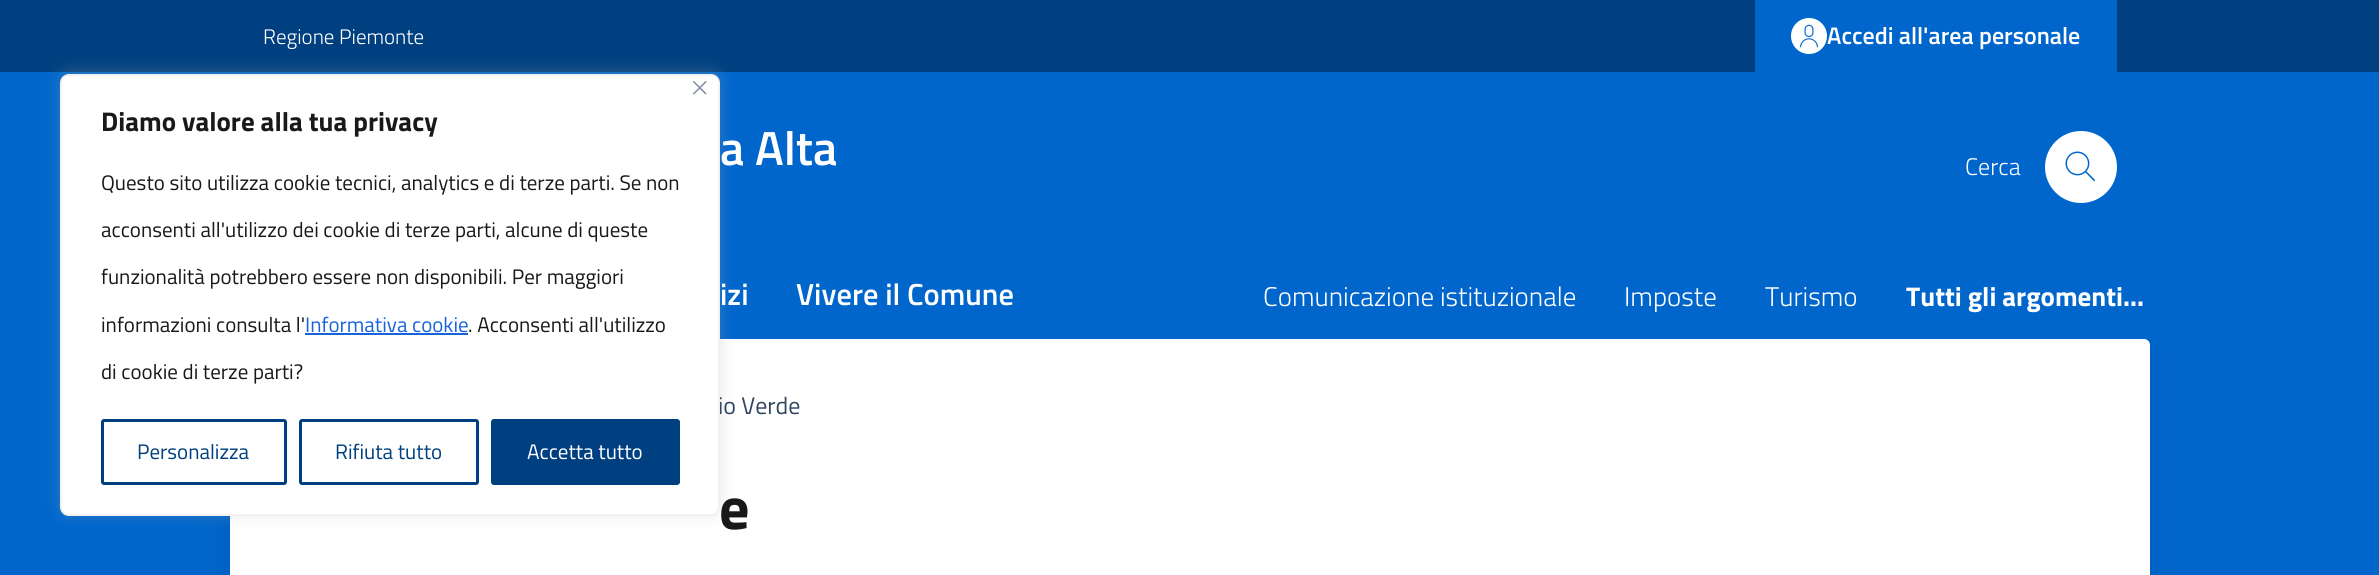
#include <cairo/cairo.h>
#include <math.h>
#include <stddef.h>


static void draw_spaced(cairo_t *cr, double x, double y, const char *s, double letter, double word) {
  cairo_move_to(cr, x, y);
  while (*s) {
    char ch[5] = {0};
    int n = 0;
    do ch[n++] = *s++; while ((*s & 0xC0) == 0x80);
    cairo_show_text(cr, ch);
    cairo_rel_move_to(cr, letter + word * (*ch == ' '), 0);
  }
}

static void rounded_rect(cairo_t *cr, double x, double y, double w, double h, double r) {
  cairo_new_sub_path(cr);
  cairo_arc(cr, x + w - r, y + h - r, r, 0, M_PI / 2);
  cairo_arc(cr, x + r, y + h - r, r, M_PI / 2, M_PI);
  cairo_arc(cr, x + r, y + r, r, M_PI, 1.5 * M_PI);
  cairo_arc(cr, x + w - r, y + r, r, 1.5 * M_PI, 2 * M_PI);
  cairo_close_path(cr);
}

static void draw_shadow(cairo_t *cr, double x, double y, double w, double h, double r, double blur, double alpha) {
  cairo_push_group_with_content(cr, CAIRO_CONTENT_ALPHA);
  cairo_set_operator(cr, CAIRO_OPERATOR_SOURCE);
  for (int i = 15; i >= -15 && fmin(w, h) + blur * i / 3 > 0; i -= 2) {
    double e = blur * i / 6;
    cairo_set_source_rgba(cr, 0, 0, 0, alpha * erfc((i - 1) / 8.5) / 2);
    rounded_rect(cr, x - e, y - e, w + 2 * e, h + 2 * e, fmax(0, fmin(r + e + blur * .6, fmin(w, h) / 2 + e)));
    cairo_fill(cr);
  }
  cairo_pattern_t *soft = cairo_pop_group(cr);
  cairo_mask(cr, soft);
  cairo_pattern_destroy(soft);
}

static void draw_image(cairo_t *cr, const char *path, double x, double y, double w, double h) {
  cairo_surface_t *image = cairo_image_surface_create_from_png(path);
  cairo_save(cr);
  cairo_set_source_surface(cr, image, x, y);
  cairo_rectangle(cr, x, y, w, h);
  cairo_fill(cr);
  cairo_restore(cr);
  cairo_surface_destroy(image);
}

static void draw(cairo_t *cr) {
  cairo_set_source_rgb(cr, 0, 102 / 255.0, 204 / 255.0);
  cairo_paint(cr);
  cairo_set_source_rgb(cr, 0, 64 / 255.0, 128 / 255.0);
  cairo_rectangle(cr, 0, 0, 2379, 72);
  cairo_fill(cr);
  cairo_set_source_rgb(cr, 0, 102 / 255.0, 204 / 255.0);
  cairo_rectangle(cr, 1755, 0, 362, 72);
  cairo_fill(cr);
  cairo_set_source_rgb(cr, 1, 1, 1);
  cairo_arc(cr, 1809, 36, 18, 0, 2 * M_PI);
  cairo_fill(cr);
  draw_image(cr, "images/1.png", 1800, 24, 18, 24);
  cairo_arc(cr, 2081, 167, 36, 0, 2 * M_PI);
  cairo_fill(cr);
  draw_image(cr, "images/2.png", 2065, 151, 31, 31);
  cairo_set_source_rgb(cr, 0, 0, 0);
  draw_shadow(cr, 230, 342, 1920, 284, 6, 15, 0.1);
  cairo_set_source_rgb(cr, 0, 102 / 255.0, 204 / 255.0);
  cairo_rectangle(cr, 223, 325, 1934, 14);
  cairo_fill(cr);
  cairo_set_source_rgb(cr, 1, 1, 1);
  rounded_rect(cr, 230, 339, 1920, 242, 6);
  cairo_fill(cr);
  cairo_set_source_rgb(cr, 172 / 255.0, 171 / 255.0, 171 / 255.0);
  draw_shadow(cr, 60, 72, 660, 443, 9, 7.5, 0.3);
  cairo_select_font_face(cr, "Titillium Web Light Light", CAIRO_FONT_SLANT_NORMAL, CAIRO_FONT_WEIGHT_NORMAL);
  cairo_set_font_size(cr, 21);
  cairo_set_source_rgb(cr, 1, 1, 1);
  cairo_move_to(cr, 263, 44);
  cairo_show_text(cr, "Regione Piemonte");
  cairo_select_font_face(cr, "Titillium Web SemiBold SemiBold", CAIRO_FONT_SLANT_NORMAL, CAIRO_FONT_WEIGHT_NORMAL);
  cairo_set_font_size(cr, 24);
  cairo_move_to(cr, 1827, 44);
  cairo_show_text(cr, "Accedi all'area personale");
  cairo_set_font_size(cr, 48);
  cairo_move_to(cr, 720, 165);
  cairo_show_text(cr, "a Alta");
  cairo_select_font_face(cr, "Titillium Web Light Light", CAIRO_FONT_SLANT_NORMAL, CAIRO_FONT_WEIGHT_NORMAL);
  cairo_set_font_size(cr, 24);
  cairo_move_to(cr, 1965, 175);
  cairo_show_text(cr, "Cerca");
  cairo_select_font_face(cr, "Titillium Web SemiBold SemiBold", CAIRO_FONT_SLANT_NORMAL, CAIRO_FONT_WEIGHT_NORMAL);
  cairo_set_font_size(cr, 30.5);
  cairo_move_to(cr, 720, 305);
  cairo_show_text(cr, "izi");
  cairo_move_to(cr, 796, 305);
  cairo_show_text(cr, "Vivere il Comune");
  cairo_select_font_face(cr, "Titillium Web Light Light", CAIRO_FONT_SLANT_NORMAL, CAIRO_FONT_WEIGHT_NORMAL);
  cairo_set_font_size(cr, 27);
  cairo_move_to(cr, 1263, 306);
  cairo_show_text(cr, "Comunicazione istituzionale");
  cairo_move_to(cr, 1624, 306);
  cairo_show_text(cr, "Imposte");
  cairo_move_to(cr, 1765, 306);
  cairo_show_text(cr, "Turismo");
  cairo_select_font_face(cr, "Titillium Web", CAIRO_FONT_SLANT_NORMAL, CAIRO_FONT_WEIGHT_BOLD);
  cairo_move_to(cr, 1906, 306);
  cairo_show_text(cr, "Tutti gli argomenti...");
  cairo_select_font_face(cr, "Titillium Web", CAIRO_FONT_SLANT_NORMAL, CAIRO_FONT_WEIGHT_NORMAL);
  cairo_set_font_size(cr, 24);
  cairo_set_source_rgb(cr, 48 / 255.0, 71 / 255.0, 95 / 255.0);
  cairo_move_to(cr, 718, 414);
  cairo_show_text(cr, "io Verde");
  cairo_set_source_rgb(cr, 1, 1, 1);
  rounded_rect(cr, 61, 75, 658, 440, 8);
  cairo_fill_preserve(cr);
  cairo_set_source_rgb(cr, 242 / 255.0, 242 / 255.0, 242 / 255.0);
  cairo_stroke(cr);
  draw_image(cr, "images/3.png", 693, 81, 14, 14);
  cairo_set_source_rgb(cr, 0, 64 / 255.0, 128 / 255.0);
  rounded_rect(cr, 492.5, 420.5, 186, 63, 1.5);
  cairo_fill_preserve(cr);
  cairo_set_line_width(cr, 3);
  cairo_stroke(cr);
  cairo_set_font_size(cr, 21);
  cairo_set_source_rgb(cr, 1, 1, 1);
  cairo_move_to(cr, 527, 459);
  cairo_show_text(cr, "Accetta tutto");
  rounded_rect(cr, 300.5, 420.5, 177, 63, 1.5);
  cairo_set_source_rgb(cr, 0, 64 / 255.0, 128 / 255.0);
  cairo_stroke(cr);
  cairo_move_to(cr, 335, 459);
  cairo_show_text(cr, "Rifiuta tutto");
  rounded_rect(cr, 102.5, 420.5, 183, 63, 1.5);
  cairo_stroke(cr);
  cairo_move_to(cr, 137, 459);
  cairo_show_text(cr, "Personalizza");
  cairo_set_source_rgb(cr, 25 / 255.0, 25 / 255.0, 25 / 255.0);
  cairo_move_to(cr, 101, 379);
  cairo_show_text(cr, "di cookie di terze parti?");
  cairo_move_to(cr, 468, 332);
  cairo_show_text(cr, ". Acconsenti all'utilizzo");
  cairo_set_source_rgb(cr, 24 / 255.0, 99 / 255.0, 220 / 255.0);
  cairo_move_to(cr, 305, 332);
  cairo_show_text(cr, "Informativa cookie");
  cairo_rectangle(cr, 305, 333, 163, 2);
  cairo_fill(cr);
  cairo_set_source_rgb(cr, 25 / 255.0, 25 / 255.0, 25 / 255.0);
  cairo_move_to(cr, 101, 332);
  cairo_show_text(cr, "informazioni consulta l'");
  cairo_move_to(cr, 101, 284);
  cairo_show_text(cr, "funzionalità potrebbero essere non disponibili. Per maggiori");
  cairo_move_to(cr, 101, 237);
  cairo_show_text(cr, "acconsenti all'utilizzo dei cookie di terze parti, alcune di queste");
  cairo_move_to(cr, 101, 190);
  cairo_show_text(cr, "Questo sito utilizza cookie tecnici, analytics e di terze parti. Se non");
  cairo_select_font_face(cr, "Titillium Web", CAIRO_FONT_SLANT_NORMAL, CAIRO_FONT_WEIGHT_BOLD);
  cairo_set_font_size(cr, 27);
  cairo_move_to(cr, 101, 131);
  cairo_show_text(cr, "Diamo valore alla tua privacy");
  cairo_set_font_size(cr, 60);
  draw_spaced(cr, 719, 529, "e", -2, 0);
}

int main(void) {
  cairo_surface_t *surface = cairo_image_surface_create(CAIRO_FORMAT_RGB24, 2379, 575);
  cairo_t *cr = cairo_create(surface);
  cairo_font_options_t *options = cairo_font_options_create();
  cairo_font_options_set_hint_metrics(options, CAIRO_HINT_METRICS_OFF);
  cairo_font_options_set_hint_style(options, CAIRO_HINT_STYLE_NONE);
  cairo_set_font_options(cr, options);
  cairo_set_miter_limit(cr, 4);
  draw(cr);
  cairo_surface_write_to_png(surface, "out.png");
  cairo_font_options_destroy(options);
  cairo_destroy(cr);
  cairo_surface_destroy(surface);
  return 0;
}
